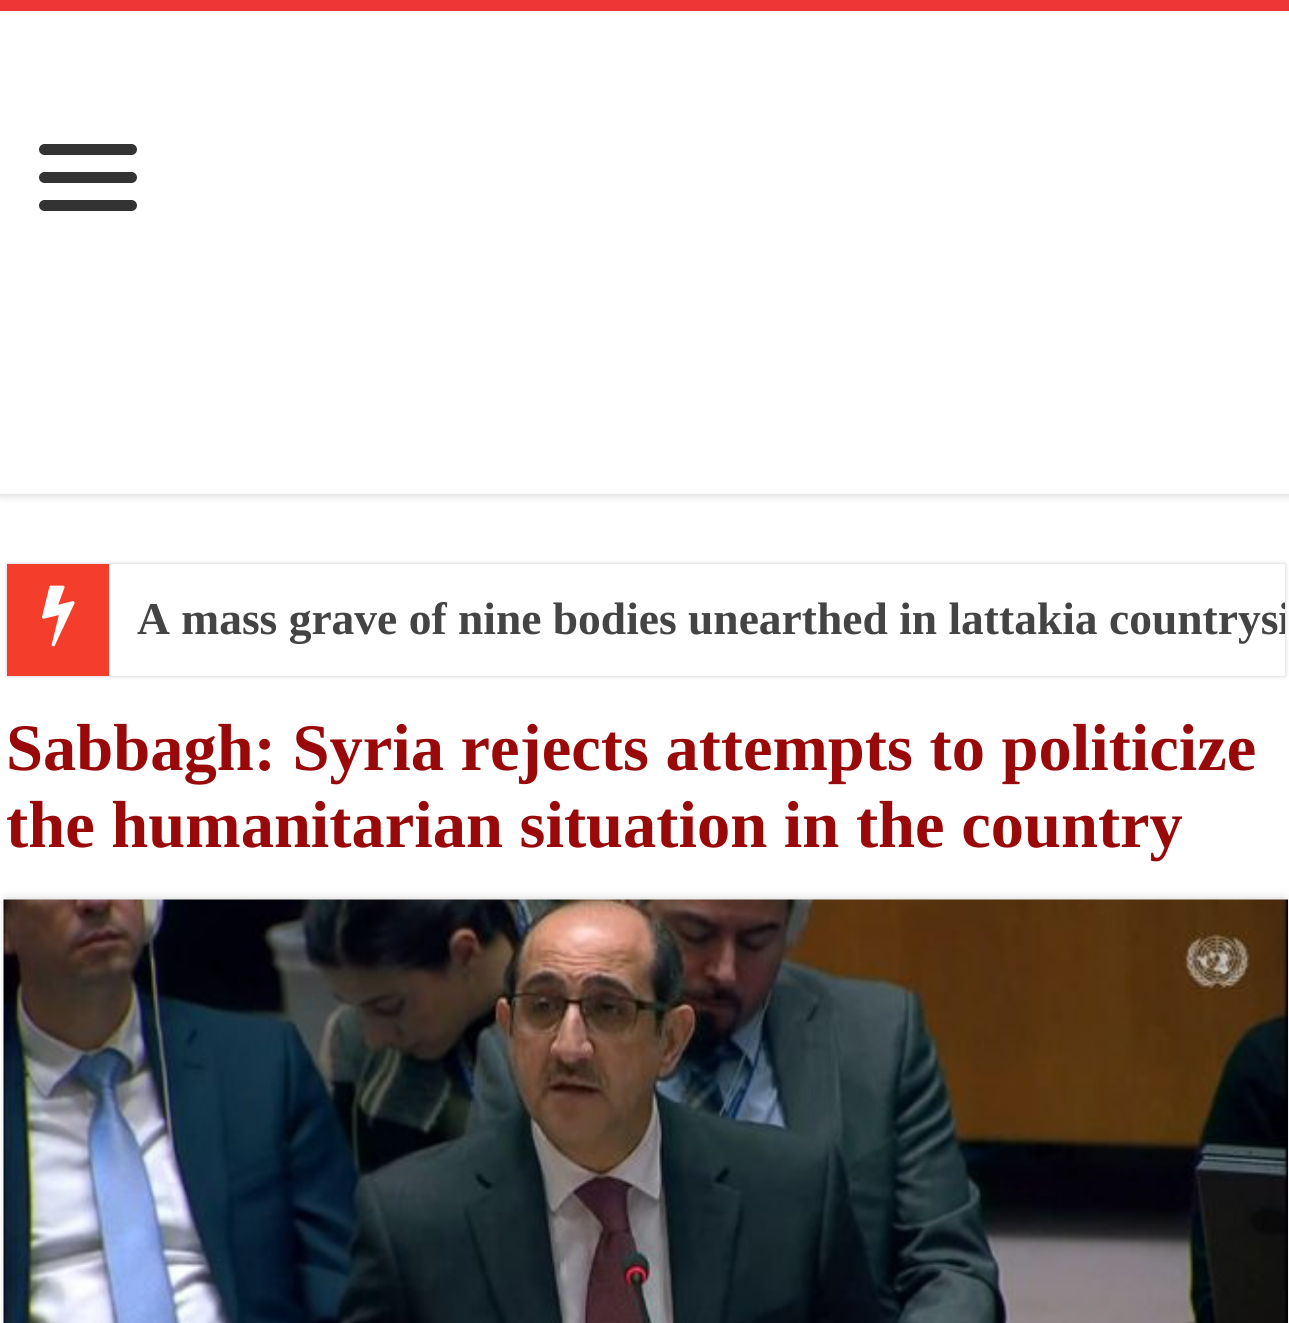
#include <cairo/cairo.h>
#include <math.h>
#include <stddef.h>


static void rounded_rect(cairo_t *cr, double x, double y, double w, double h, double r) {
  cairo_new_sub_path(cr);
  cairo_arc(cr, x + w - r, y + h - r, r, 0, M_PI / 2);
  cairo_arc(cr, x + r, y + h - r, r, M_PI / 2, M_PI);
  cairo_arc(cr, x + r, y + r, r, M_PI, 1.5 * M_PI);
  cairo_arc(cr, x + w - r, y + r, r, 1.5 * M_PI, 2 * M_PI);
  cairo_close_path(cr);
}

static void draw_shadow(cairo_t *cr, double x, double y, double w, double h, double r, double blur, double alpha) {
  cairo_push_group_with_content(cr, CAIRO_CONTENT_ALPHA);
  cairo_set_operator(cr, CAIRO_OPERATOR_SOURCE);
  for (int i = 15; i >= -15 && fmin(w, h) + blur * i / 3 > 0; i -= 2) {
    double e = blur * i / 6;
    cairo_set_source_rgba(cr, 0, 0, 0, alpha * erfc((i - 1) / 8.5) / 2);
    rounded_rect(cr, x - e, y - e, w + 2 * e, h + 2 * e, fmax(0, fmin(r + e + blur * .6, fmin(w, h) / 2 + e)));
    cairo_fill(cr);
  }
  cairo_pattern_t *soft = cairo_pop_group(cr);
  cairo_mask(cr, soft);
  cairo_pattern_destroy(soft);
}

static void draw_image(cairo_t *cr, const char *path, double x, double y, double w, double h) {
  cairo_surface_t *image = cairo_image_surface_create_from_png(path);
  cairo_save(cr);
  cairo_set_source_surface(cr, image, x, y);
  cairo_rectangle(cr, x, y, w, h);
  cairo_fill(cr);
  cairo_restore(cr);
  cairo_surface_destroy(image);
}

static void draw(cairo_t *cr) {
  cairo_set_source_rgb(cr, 1, 1, 1);
  cairo_paint(cr);
  cairo_set_source_rgb(cr, 202 / 255.0, 202 / 255.0, 202 / 255.0);
  draw_shadow(cr, 0, 0, 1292, 494, 0, 5, 1);
  cairo_set_source_rgb(cr, 1, 1, 1);
  cairo_rectangle(cr, 0, 11, 1289, 483);
  cairo_fill(cr);
  cairo_set_source_rgb(cr, 239 / 255.0, 54 / 255.0, 54 / 255.0);
  cairo_rectangle(cr, 0, 0, 1289, 11);
  cairo_fill(cr);
  cairo_set_source_rgb(cr, 51 / 255.0, 51 / 255.0, 51 / 255.0);
  rounded_rect(cr, 39, 144, 98, 11, 5.5);
  cairo_fill(cr);
  rounded_rect(cr, 39, 172, 98, 11, 5.5);
  cairo_fill(cr);
  rounded_rect(cr, 39, 200, 98, 11, 5.5);
  cairo_fill(cr);
  cairo_set_source_rgb(cr, 202 / 255.0, 202 / 255.0, 202 / 255.0);
  draw_shadow(cr, 7, 564, 1278, 112, 0, 2, 1);
  cairo_set_source_rgb(cr, 1, 1, 1);
  cairo_rectangle(cr, 109, 564, 1176, 112);
  cairo_fill(cr);
  cairo_set_source_rgb(cr, 244 / 255.0, 61 / 255.0, 42 / 255.0);
  cairo_rectangle(cr, 7, 564, 102, 112);
  cairo_fill(cr);
  draw_image(cr, "images/1.png", 42, 585, 33, 62);
  cairo_set_source_rgb(cr, 202 / 255.0, 202 / 255.0, 202 / 255.0);
  draw_shadow(cr, 7, 900, 1278, 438, 0, 5, 1);
  draw_image(cr, "images/2.png", 3, 899, 1285, 424);
  cairo_save(cr);
  cairo_rectangle(cr, 7, 564, 1278, 112);
  cairo_clip(cr);
  cairo_select_font_face(cr, "Liberation Serif", CAIRO_FONT_SLANT_NORMAL, CAIRO_FONT_WEIGHT_BOLD);
  cairo_set_font_size(cr, 45.5);
  cairo_set_source_rgb(cr, 68 / 255.0, 68 / 255.0, 68 / 255.0);
  cairo_move_to(cr, 137, 634);
  cairo_show_text(cr, "A mass grave of nine bodies unearthed in lattakia countrysi");
  cairo_restore(cr);
  cairo_select_font_face(cr, "Liberation Serif", CAIRO_FONT_SLANT_NORMAL, CAIRO_FONT_WEIGHT_BOLD);
  cairo_set_font_size(cr, 66.5);
  cairo_set_source_rgb(cr, 153 / 255.0, 9 / 255.0, 9 / 255.0);
  cairo_move_to(cr, 6, 770);
  cairo_show_text(cr, "Sabbagh: Syria rejects attempts to politicize");
  cairo_move_to(cr, 6, 847);
  cairo_show_text(cr, "the humanitarian situation in the country");
}

int main(void) {
  cairo_surface_t *surface = cairo_image_surface_create(CAIRO_FORMAT_RGB24, 1289, 1323);
  cairo_t *cr = cairo_create(surface);
  cairo_font_options_t *options = cairo_font_options_create();
  cairo_font_options_set_hint_metrics(options, CAIRO_HINT_METRICS_OFF);
  cairo_font_options_set_hint_style(options, CAIRO_HINT_STYLE_NONE);
  cairo_set_font_options(cr, options);
  cairo_set_miter_limit(cr, 4);
  draw(cr);
  cairo_surface_write_to_png(surface, "out.png");
  cairo_font_options_destroy(options);
  cairo_destroy(cr);
  cairo_surface_destroy(surface);
  return 0;
}
